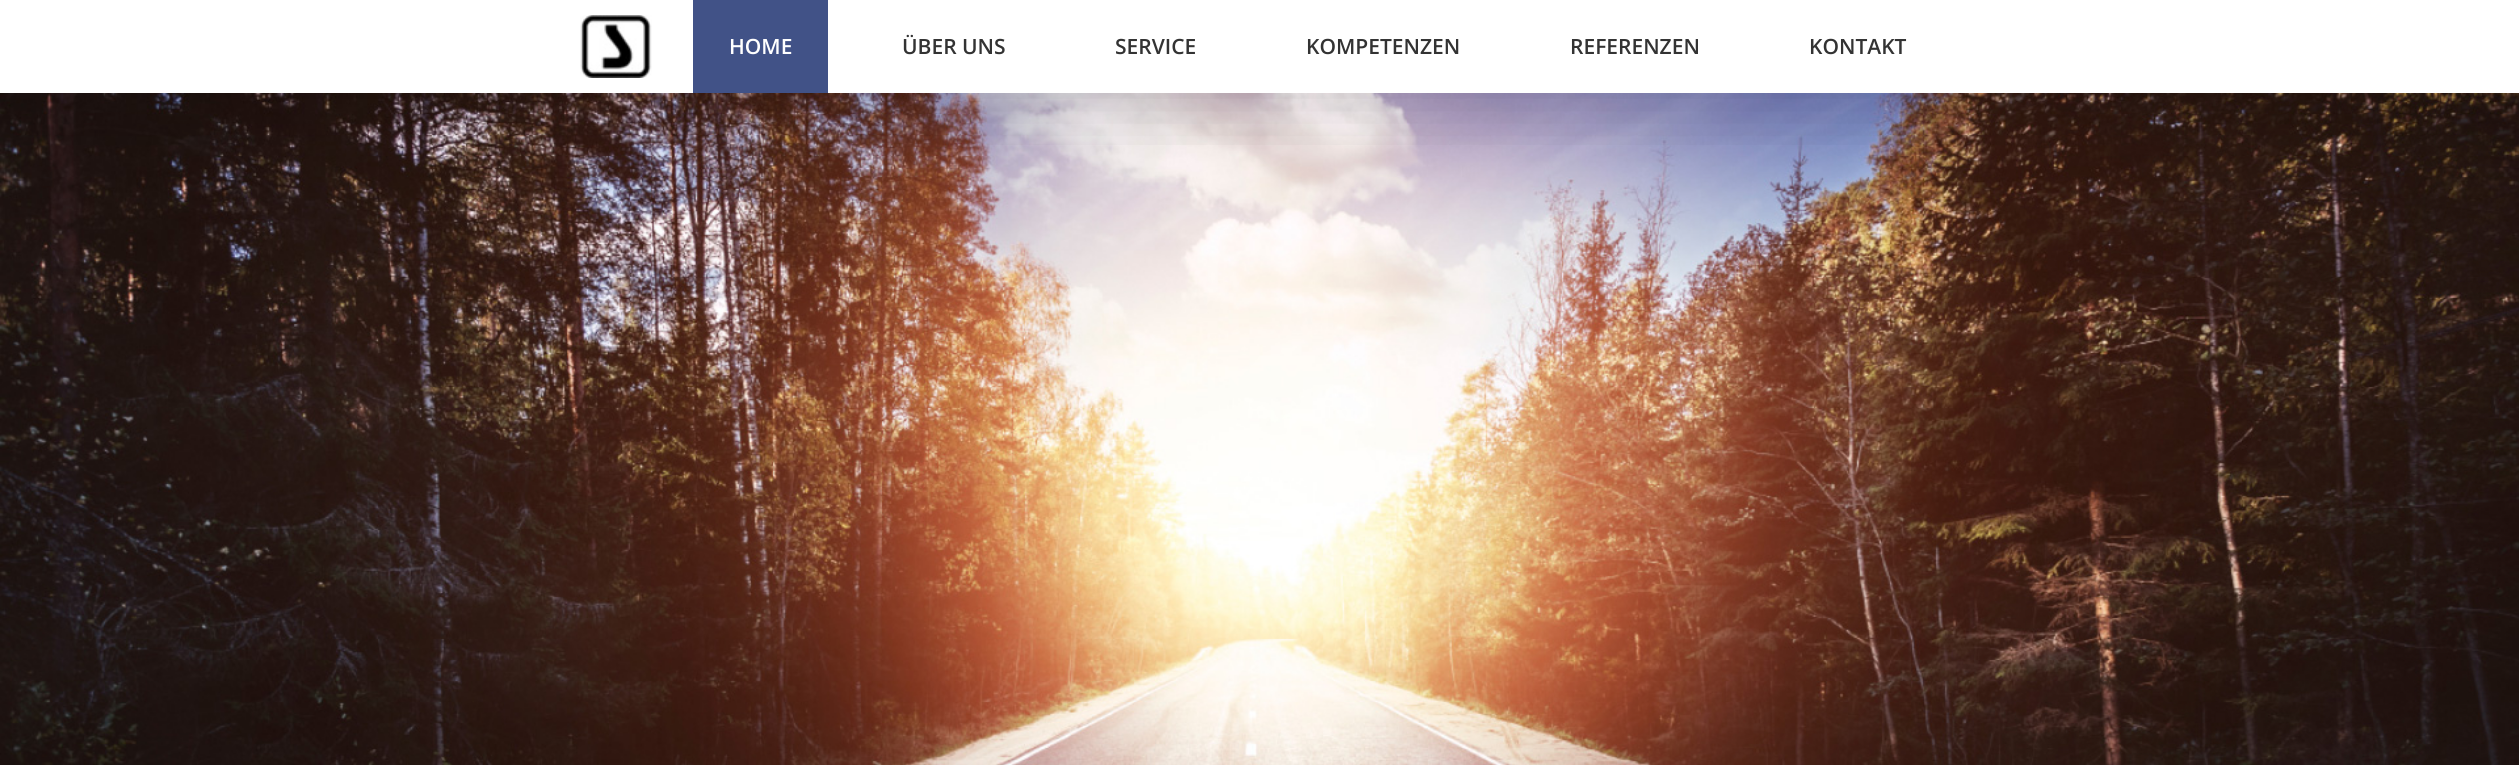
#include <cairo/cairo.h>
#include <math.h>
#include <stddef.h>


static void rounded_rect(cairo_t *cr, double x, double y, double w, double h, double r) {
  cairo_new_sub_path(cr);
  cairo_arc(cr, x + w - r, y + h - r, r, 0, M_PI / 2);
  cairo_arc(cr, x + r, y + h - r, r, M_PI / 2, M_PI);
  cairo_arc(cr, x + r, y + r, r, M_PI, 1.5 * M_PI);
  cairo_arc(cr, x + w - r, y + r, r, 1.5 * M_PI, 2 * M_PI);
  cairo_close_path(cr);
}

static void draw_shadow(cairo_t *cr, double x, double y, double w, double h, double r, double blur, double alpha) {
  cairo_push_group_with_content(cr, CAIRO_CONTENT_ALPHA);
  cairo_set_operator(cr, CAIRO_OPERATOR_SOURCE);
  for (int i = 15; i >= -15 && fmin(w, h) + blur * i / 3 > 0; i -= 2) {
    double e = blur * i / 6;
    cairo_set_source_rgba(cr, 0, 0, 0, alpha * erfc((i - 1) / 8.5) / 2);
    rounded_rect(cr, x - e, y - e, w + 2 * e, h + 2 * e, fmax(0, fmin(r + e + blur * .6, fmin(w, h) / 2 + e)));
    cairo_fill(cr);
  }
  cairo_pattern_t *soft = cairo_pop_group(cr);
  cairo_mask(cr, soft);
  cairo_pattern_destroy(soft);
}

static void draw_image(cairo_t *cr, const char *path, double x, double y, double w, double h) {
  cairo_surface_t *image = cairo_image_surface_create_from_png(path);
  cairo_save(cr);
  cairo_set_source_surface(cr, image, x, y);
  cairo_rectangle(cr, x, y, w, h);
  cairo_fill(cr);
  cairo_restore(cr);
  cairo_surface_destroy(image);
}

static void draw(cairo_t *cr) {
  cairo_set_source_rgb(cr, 1, 1, 1);
  cairo_paint(cr);
  draw_image(cr, "images/2.png", 0, 93, 2519, 672);
  cairo_save(cr);
  cairo_rectangle(cr, 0, 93, 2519, 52);
  cairo_clip(cr);
  cairo_set_source_rgb(cr, 0, 0, 0);
  draw_shadow(cr, 3, 18, 2514, 87, 0, 37.5, 0.14);
  cairo_restore(cr);
  draw_image(cr, "images/1.png", 580, 15, 72, 63);
  cairo_set_source_rgb(cr, 65 / 255.0, 82 / 255.0, 135 / 255.0);
  cairo_rectangle(cr, 693, 0, 135, 93);
  cairo_fill(cr);
  cairo_select_font_face(cr, "Open Sans SemiBold", CAIRO_FONT_SLANT_NORMAL, CAIRO_FONT_WEIGHT_NORMAL);
  cairo_set_font_size(cr, 21);
  cairo_set_source_rgb(cr, 1, 1, 1);
  cairo_move_to(cr, 729, 54);
  cairo_show_text(cr, "HOME");
  cairo_set_source_rgb(cr, 51 / 255.0, 51 / 255.0, 51 / 255.0);
  cairo_move_to(cr, 902, 54);
  cairo_show_text(cr, "ÜBER UNS");
  cairo_move_to(cr, 1115, 54);
  cairo_show_text(cr, "SERVICE");
  cairo_move_to(cr, 1306, 54);
  cairo_show_text(cr, "KOMPETENZEN");
  cairo_move_to(cr, 1570, 54);
  cairo_show_text(cr, "REFERENZEN");
  cairo_move_to(cr, 1809, 54);
  cairo_show_text(cr, "KONTAKT");
}

int main(void) {
  cairo_surface_t *surface = cairo_image_surface_create(CAIRO_FORMAT_RGB24, 2519, 765);
  cairo_t *cr = cairo_create(surface);
  cairo_font_options_t *options = cairo_font_options_create();
  cairo_font_options_set_hint_metrics(options, CAIRO_HINT_METRICS_OFF);
  cairo_font_options_set_hint_style(options, CAIRO_HINT_STYLE_NONE);
  cairo_set_font_options(cr, options);
  cairo_set_miter_limit(cr, 4);
  draw(cr);
  cairo_surface_write_to_png(surface, "out.png");
  cairo_font_options_destroy(options);
  cairo_destroy(cr);
  cairo_surface_destroy(surface);
  return 0;
}
